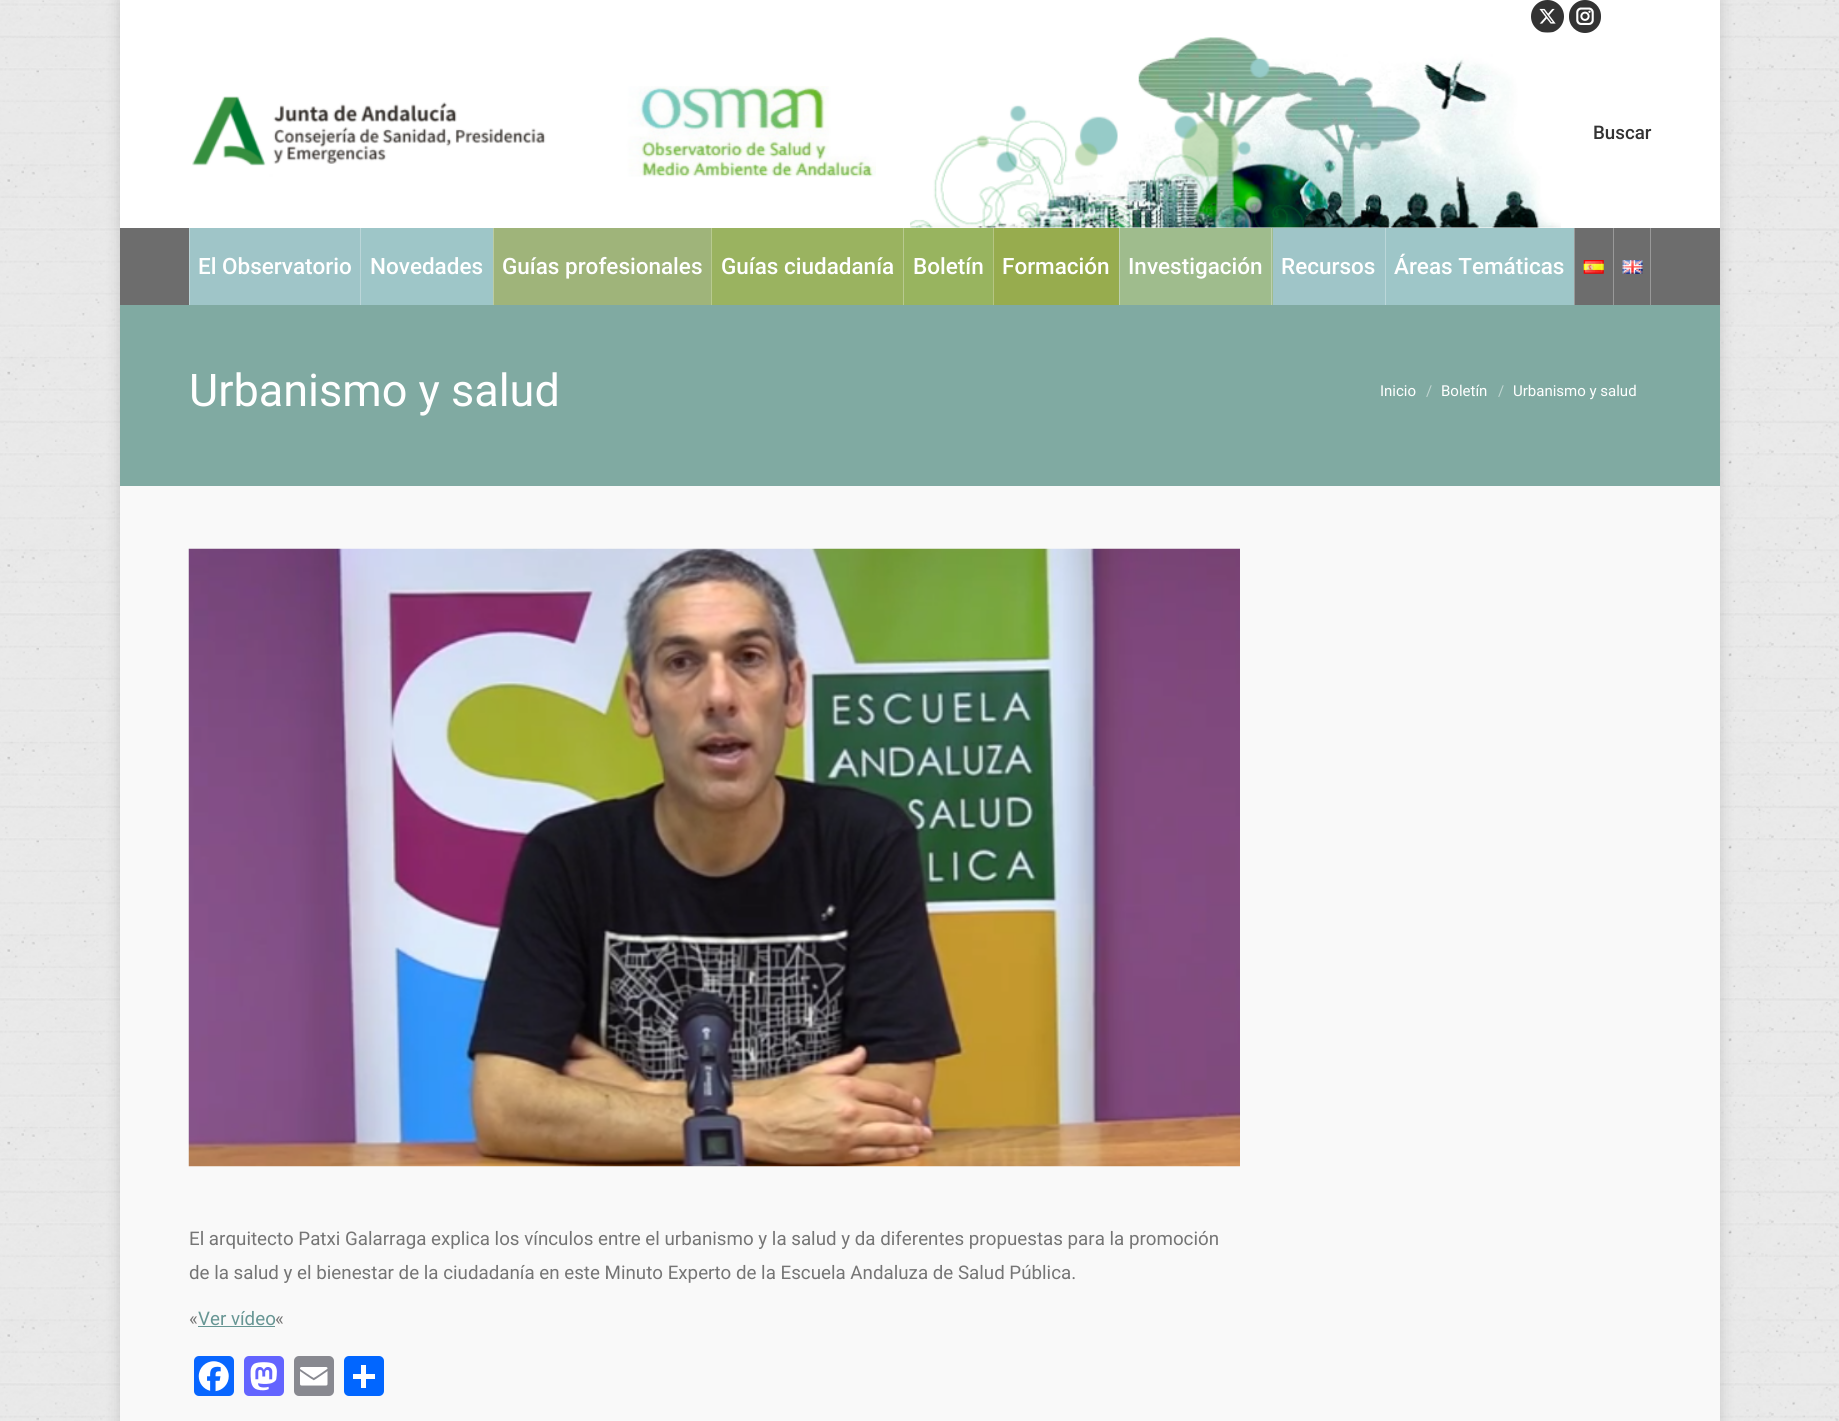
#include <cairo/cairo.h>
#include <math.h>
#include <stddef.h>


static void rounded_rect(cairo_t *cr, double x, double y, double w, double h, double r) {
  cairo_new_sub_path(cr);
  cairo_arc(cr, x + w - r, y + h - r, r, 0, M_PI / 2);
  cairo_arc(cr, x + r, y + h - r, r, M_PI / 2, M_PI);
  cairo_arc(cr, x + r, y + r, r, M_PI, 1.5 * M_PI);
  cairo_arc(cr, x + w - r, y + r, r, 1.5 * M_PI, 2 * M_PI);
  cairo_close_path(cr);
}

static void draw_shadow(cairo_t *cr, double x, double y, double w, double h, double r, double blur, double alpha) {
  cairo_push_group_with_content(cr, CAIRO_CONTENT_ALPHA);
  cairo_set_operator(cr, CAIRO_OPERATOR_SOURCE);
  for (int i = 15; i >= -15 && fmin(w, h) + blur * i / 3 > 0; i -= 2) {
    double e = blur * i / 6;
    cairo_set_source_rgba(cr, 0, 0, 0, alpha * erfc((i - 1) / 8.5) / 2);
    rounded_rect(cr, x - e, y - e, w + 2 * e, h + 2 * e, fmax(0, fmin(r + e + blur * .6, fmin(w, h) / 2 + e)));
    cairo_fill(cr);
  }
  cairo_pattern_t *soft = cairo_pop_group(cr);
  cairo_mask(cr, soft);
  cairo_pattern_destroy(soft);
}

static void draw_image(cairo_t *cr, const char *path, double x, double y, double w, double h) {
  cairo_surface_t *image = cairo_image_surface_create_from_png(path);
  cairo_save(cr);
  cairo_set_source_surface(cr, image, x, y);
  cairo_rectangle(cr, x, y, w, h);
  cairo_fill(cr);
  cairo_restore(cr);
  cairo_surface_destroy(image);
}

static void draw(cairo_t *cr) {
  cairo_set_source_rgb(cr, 1, 1, 1);
  cairo_paint(cr);
  draw_image(cr, "images/1.png", 0, 0, 1839, 1421);
  cairo_set_source_rgb(cr, 0, 0, 0);
  draw_shadow(cr, 120, 0, 1600, 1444, 0, 7.5, 0.15);
  cairo_set_source_rgb(cr, 1, 1, 1);
  cairo_rectangle(cr, 120, 0, 1600, 228);
  cairo_fill(cr);
  cairo_set_source_rgb(cr, 51 / 255.0, 51 / 255.0, 51 / 255.0);
  cairo_arc(cr, 1547.5, 16.5, 16.5, 0, 2 * M_PI);
  cairo_fill(cr);
  draw_image(cr, "images/2.png", 1539, 8, 17, 16);
  rounded_rect(cr, 1569, 0, 32, 33, 16);
  cairo_fill(cr);
  draw_image(cr, "images/3.png", 1576, 7, 18, 18);
  draw_image(cr, "images/4.png", 192, 86, 684, 91);
  draw_image(cr, "images/5.png", 910, 32, 651, 196);
  cairo_set_source_rgb(cr, 109 / 255.0, 109 / 255.0, 109 / 255.0);
  cairo_rectangle(cr, 120, 228, 1600, 77);
  cairo_fill(cr);
  cairo_set_source_rgb(cr, 159 / 255.0, 197 / 255.0, 200 / 255.0);
  cairo_rectangle(cr, 190, 228, 170, 77);
  cairo_fill(cr);
  cairo_set_source_rgb(cr, 188 / 255.0, 214 / 255.0, 217 / 255.0);
  cairo_rectangle(cr, 189, 228, 1, 77);
  cairo_fill(cr);
  cairo_set_source_rgb(cr, 158 / 255.0, 198 / 255.0, 200 / 255.0);
  cairo_rectangle(cr, 361, 228, 132, 77);
  cairo_fill(cr);
  cairo_set_source_rgb(cr, 188 / 255.0, 214 / 255.0, 217 / 255.0);
  cairo_rectangle(cr, 360, 228, 1, 77);
  cairo_fill(cr);
  cairo_set_source_rgb(cr, 159 / 255.0, 180 / 255.0, 122 / 255.0);
  cairo_rectangle(cr, 494, 228, 217, 77);
  cairo_fill(cr);
  cairo_set_source_rgb(cr, 188 / 255.0, 203 / 255.0, 162 / 255.0);
  cairo_rectangle(cr, 493, 228, 1, 77);
  cairo_fill(cr);
  cairo_set_source_rgb(cr, 154 / 255.0, 179 / 255.0, 96 / 255.0);
  cairo_rectangle(cr, 712, 228, 191, 77);
  cairo_fill(cr);
  cairo_set_source_rgb(cr, 184 / 255.0, 202 / 255.0, 144 / 255.0);
  cairo_rectangle(cr, 711, 228, 1, 77);
  cairo_fill(cr);
  cairo_set_source_rgb(cr, 152 / 255.0, 180 / 255.0, 95 / 255.0);
  cairo_rectangle(cr, 904, 228, 89, 77);
  cairo_fill(cr);
  cairo_set_source_rgb(cr, 184 / 255.0, 202 / 255.0, 144 / 255.0);
  cairo_rectangle(cr, 903, 228, 1, 77);
  cairo_fill(cr);
  cairo_set_source_rgb(cr, 151 / 255.0, 172 / 255.0, 78 / 255.0);
  cairo_rectangle(cr, 994, 228, 125, 77);
  cairo_fill(cr);
  cairo_set_source_rgb(cr, 182 / 255.0, 197 / 255.0, 131 / 255.0);
  cairo_rectangle(cr, 993, 228, 1, 77);
  cairo_fill(cr);
  cairo_set_source_rgb(cr, 159 / 255.0, 188 / 255.0, 141 / 255.0);
  cairo_rectangle(cr, 1120, 228, 153, 77);
  cairo_fill(cr);
  cairo_set_source_rgb(cr, 188 / 255.0, 208 / 255.0, 175 / 255.0);
  cairo_rectangle(cr, 1119, 228, 1, 77);
  cairo_fill(cr);
  cairo_set_source_rgb(cr, 159 / 255.0, 197 / 255.0, 200 / 255.0);
  cairo_rectangle(cr, 1273, 228, 112, 77);
  cairo_fill(cr);
  cairo_set_source_rgb(cr, 188 / 255.0, 208 / 255.0, 175 / 255.0);
  cairo_rectangle(cr, 1271, 228, 1, 77);
  cairo_fill(cr);
  cairo_set_source_rgb(cr, 158 / 255.0, 198 / 255.0, 200 / 255.0);
  cairo_rectangle(cr, 1386, 228, 188, 77);
  cairo_fill(cr);
  cairo_set_source_rgb(cr, 187 / 255.0, 215 / 255.0, 217 / 255.0);
  cairo_rectangle(cr, 1385, 228, 1, 77);
  cairo_fill(cr);
  cairo_set_source_rgb(cr, 153 / 255.0, 153 / 255.0, 153 / 255.0);
  cairo_rectangle(cr, 1574, 228, 1, 77);
  cairo_fill(cr);
  draw_image(cr, "images/6.png", 1583, 260, 21, 14);
  cairo_rectangle(cr, 1613, 228, 1, 77);
  cairo_fill(cr);
  draw_image(cr, "images/7.png", 1622, 260, 21, 14);
  cairo_rectangle(cr, 1650, 228, 1, 77);
  cairo_fill(cr);
  cairo_set_source_rgb(cr, 249 / 255.0, 249 / 255.0, 249 / 255.0);
  cairo_rectangle(cr, 120, 486, 1600, 935);
  cairo_fill(cr);
  cairo_set_source_rgb(cr, 128 / 255.0, 170 / 255.0, 162 / 255.0);
  cairo_rectangle(cr, 120, 305, 1600, 181);
  cairo_fill(cr);
  draw_image(cr, "images/8.png", 188, 548, 1052, 619);
  cairo_set_source_rgb(cr, 103 / 255.0, 150 / 255.0, 148 / 255.0);
  cairo_rectangle(cr, 198, 1326, 77, 1);
  cairo_fill(cr);
  cairo_set_source_rgb(cr, 8 / 255.0, 102 / 255.0, 1);
  rounded_rect(cr, 194, 1356, 40, 40, 5);
  cairo_fill(cr);
  draw_image(cr, "images/9.png", 198, 1361, 31, 31);
  cairo_set_source_rgb(cr, 99 / 255.0, 100 / 255.0, 1);
  rounded_rect(cr, 244, 1356, 40, 40, 5);
  cairo_fill(cr);
  draw_image(cr, "images/10.png", 250, 1362, 27, 29);
  cairo_set_source_rgb(cr, 136 / 255.0, 137 / 255.0, 144 / 255.0);
  rounded_rect(cr, 294, 1356, 40, 40, 5);
  cairo_fill(cr);
  draw_image(cr, "images/11.png", 300, 1367, 28, 19);
  cairo_set_source_rgb(cr, 1 / 255.0, 102 / 255.0, 1);
  rounded_rect(cr, 344, 1356, 40, 40, 5);
  cairo_fill(cr);
  cairo_set_source_rgb(cr, 1, 1, 1);
  cairo_rectangle(cr, 361, 1365, 5, 23);
  cairo_fill(cr);
  cairo_rectangle(cr, 353, 1374, 22, 5);
  cairo_fill(cr);
  cairo_select_font_face(cr, "Roboto Medium", CAIRO_FONT_SLANT_NORMAL, CAIRO_FONT_WEIGHT_NORMAL);
  cairo_set_font_size(cr, 18.75);
  cairo_set_source_rgb(cr, 51 / 255.0, 51 / 255.0, 51 / 255.0);
  cairo_move_to(cr, 1593, 139);
  cairo_show_text(cr, "Buscar");
  cairo_set_font_size(cr, 22.5);
  cairo_set_source_rgb(cr, 1, 1, 1);
  cairo_move_to(cr, 198, 274);
  cairo_show_text(cr, "El Observatorio");
  cairo_move_to(cr, 370, 274);
  cairo_show_text(cr, "Novedades");
  cairo_move_to(cr, 502, 274);
  cairo_show_text(cr, "Guías profesionales");
  cairo_move_to(cr, 721, 274);
  cairo_show_text(cr, "Guías ciudadanía");
  cairo_move_to(cr, 913, 274);
  cairo_show_text(cr, "Boletín");
  cairo_move_to(cr, 1002, 274);
  cairo_show_text(cr, "Formación");
  cairo_move_to(cr, 1128, 274);
  cairo_show_text(cr, "Investigación");
  cairo_move_to(cr, 1281, 274);
  cairo_show_text(cr, "Recursos");
  cairo_move_to(cr, 1394, 274);
  cairo_show_text(cr, "Áreas Temáticas");
  cairo_select_font_face(cr, "Roboto", CAIRO_FONT_SLANT_NORMAL, CAIRO_FONT_WEIGHT_NORMAL);
  cairo_set_font_size(cr, 45);
  cairo_move_to(cr, 189, 406);
  cairo_show_text(cr, "Urbanismo y salud");
  cairo_set_font_size(cr, 15);
  cairo_move_to(cr, 1380, 396);
  cairo_show_text(cr, "Inicio");
  cairo_set_source_rgb(cr, 192 / 255.0, 213 / 255.0, 209 / 255.0);
  cairo_move_to(cr, 1426, 396);
  cairo_show_text(cr, "/");
  cairo_set_source_rgb(cr, 1, 1, 1);
  cairo_move_to(cr, 1441, 396);
  cairo_show_text(cr, "Boletín");
  cairo_set_source_rgb(cr, 192 / 255.0, 213 / 255.0, 209 / 255.0);
  cairo_move_to(cr, 1498, 396);
  cairo_show_text(cr, "/");
  cairo_set_source_rgb(cr, 1, 1, 1);
  cairo_move_to(cr, 1513, 396);
  cairo_show_text(cr, "Urbanismo y salud");
  cairo_set_font_size(cr, 18.75);
  cairo_set_source_rgb(cr, 117 / 255.0, 117 / 255.0, 117 / 255.0);
  cairo_move_to(cr, 189, 1245);
  cairo_show_text(cr, "El arquitecto Patxi Galarraga explica los vínculos entre el urbanismo y la salud y da diferentes propuestas para la promoción");
  cairo_move_to(cr, 189, 1279);
  cairo_show_text(cr, "de la salud y el bienestar de la ciudadanía en este Minuto Experto de la Escuela Andaluza de Salud Pública.");
  cairo_move_to(cr, 189, 1325);
  cairo_show_text(cr, "«");
  cairo_set_source_rgb(cr, 103 / 255.0, 150 / 255.0, 148 / 255.0);
  cairo_move_to(cr, 198, 1325);
  cairo_show_text(cr, "Ver vídeo");
  cairo_set_source_rgb(cr, 117 / 255.0, 117 / 255.0, 117 / 255.0);
  cairo_move_to(cr, 275, 1325);
  cairo_show_text(cr, "«");
}

int main(void) {
  cairo_surface_t *surface = cairo_image_surface_create(CAIRO_FORMAT_RGB24, 1839, 1421);
  cairo_t *cr = cairo_create(surface);
  cairo_font_options_t *options = cairo_font_options_create();
  cairo_font_options_set_hint_metrics(options, CAIRO_HINT_METRICS_OFF);
  cairo_font_options_set_hint_style(options, CAIRO_HINT_STYLE_NONE);
  cairo_set_font_options(cr, options);
  cairo_set_miter_limit(cr, 4);
  draw(cr);
  cairo_surface_write_to_png(surface, "out.png");
  cairo_font_options_destroy(options);
  cairo_destroy(cr);
  cairo_surface_destroy(surface);
  return 0;
}
